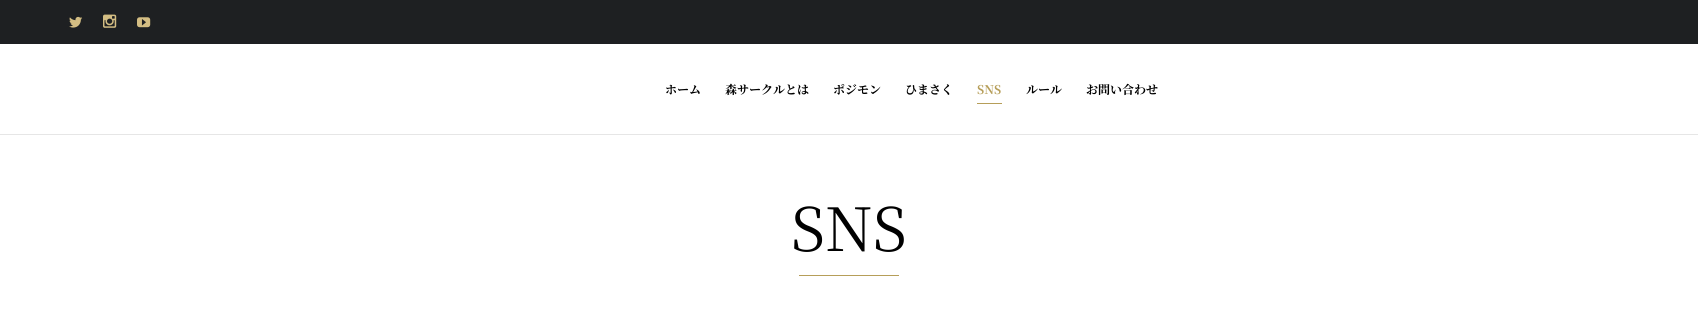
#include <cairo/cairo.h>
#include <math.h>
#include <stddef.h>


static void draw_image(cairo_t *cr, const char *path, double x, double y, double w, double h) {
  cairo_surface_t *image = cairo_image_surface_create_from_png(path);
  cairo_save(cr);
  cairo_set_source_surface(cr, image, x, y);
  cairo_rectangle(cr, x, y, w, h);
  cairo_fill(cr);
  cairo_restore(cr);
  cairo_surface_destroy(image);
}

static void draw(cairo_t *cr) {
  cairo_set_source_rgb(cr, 1, 1, 1);
  cairo_paint(cr);
  cairo_set_source_rgb(cr, 230 / 255.0, 230 / 255.0, 230 / 255.0);
  cairo_rectangle(cr, 0, 134, 1698, 1);
  cairo_fill(cr);
  cairo_set_source_rgb(cr, 30 / 255.0, 32 / 255.0, 34 / 255.0);
  cairo_rectangle(cr, 0, 0, 1698, 44);
  cairo_fill(cr);
  draw_image(cr, "images/1.png", 69, 16, 14, 12);
  draw_image(cr, "images/2.png", 103, 14, 14, 14);
  draw_image(cr, "images/3.png", 137, 17, 14, 11);
  cairo_set_source_rgb(cr, 182 / 255.0, 158 / 255.0, 89 / 255.0);
  cairo_rectangle(cr, 977, 103, 25, 1);
  cairo_fill(cr);
  cairo_rectangle(cr, 799, 275, 100, 1);
  cairo_fill(cr);
  cairo_select_font_face(cr, "Noto Serif JP", CAIRO_FONT_SLANT_NORMAL, CAIRO_FONT_WEIGHT_BOLD);
  cairo_set_font_size(cr, 12);
  cairo_set_source_rgb(cr, 0, 0, 0);
  cairo_move_to(cr, 665, 94);
  cairo_show_text(cr, "ホーム");
  cairo_move_to(cr, 725, 94);
  cairo_show_text(cr, "森サークルとは");
  cairo_move_to(cr, 833, 94);
  cairo_show_text(cr, "ポジモン");
  cairo_move_to(cr, 905, 94);
  cairo_show_text(cr, "ひまさく");
  cairo_set_source_rgb(cr, 182 / 255.0, 158 / 255.0, 89 / 255.0);
  cairo_move_to(cr, 977, 94);
  cairo_show_text(cr, "SNS");
  cairo_set_source_rgb(cr, 0, 0, 0);
  cairo_move_to(cr, 1026, 94);
  cairo_show_text(cr, "ルール");
  cairo_move_to(cr, 1086, 94);
  cairo_show_text(cr, "お問い合わせ");
  cairo_select_font_face(cr, "Noto Serif JP ExtraLight", CAIRO_FONT_SLANT_NORMAL, CAIRO_FONT_WEIGHT_NORMAL);
  cairo_set_font_size(cr, 60);
  cairo_move_to(cr, 791, 251);
  cairo_show_text(cr, "SNS");
}

int main(void) {
  cairo_surface_t *surface = cairo_image_surface_create(CAIRO_FORMAT_RGB24, 1698, 319);
  cairo_t *cr = cairo_create(surface);
  cairo_font_options_t *options = cairo_font_options_create();
  cairo_font_options_set_hint_metrics(options, CAIRO_HINT_METRICS_OFF);
  cairo_font_options_set_hint_style(options, CAIRO_HINT_STYLE_NONE);
  cairo_set_font_options(cr, options);
  cairo_set_miter_limit(cr, 4);
  draw(cr);
  cairo_surface_write_to_png(surface, "out.png");
  cairo_font_options_destroy(options);
  cairo_destroy(cr);
  cairo_surface_destroy(surface);
  return 0;
}
